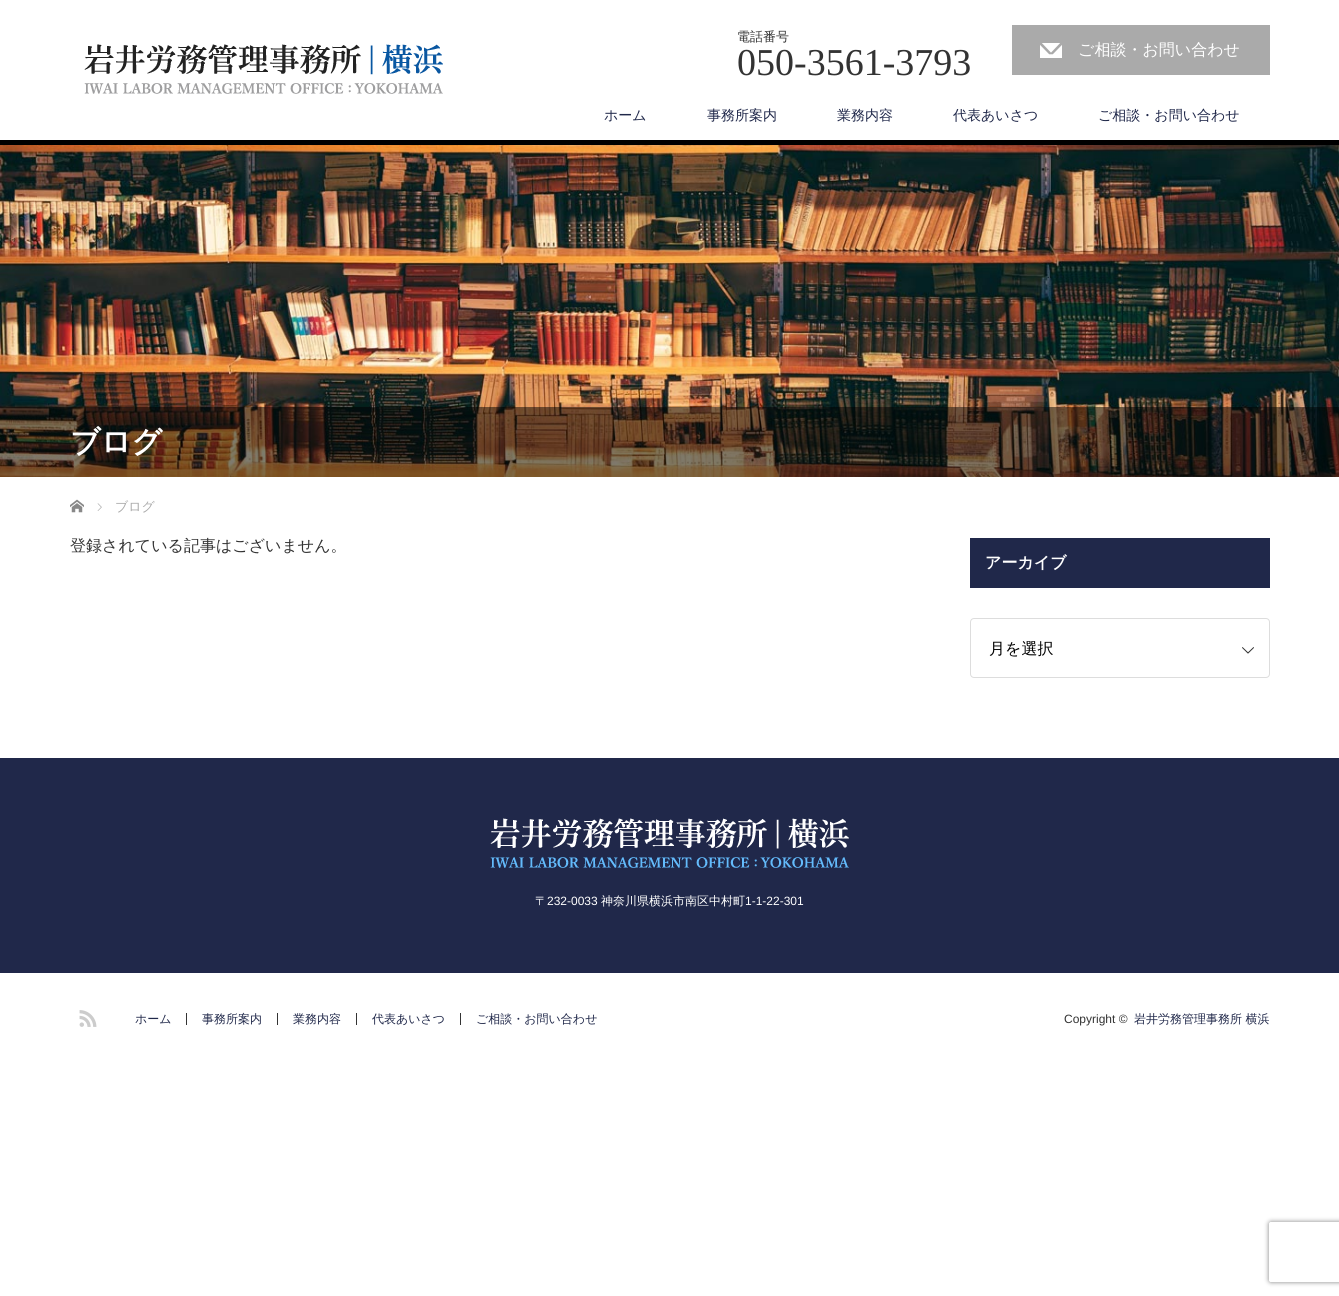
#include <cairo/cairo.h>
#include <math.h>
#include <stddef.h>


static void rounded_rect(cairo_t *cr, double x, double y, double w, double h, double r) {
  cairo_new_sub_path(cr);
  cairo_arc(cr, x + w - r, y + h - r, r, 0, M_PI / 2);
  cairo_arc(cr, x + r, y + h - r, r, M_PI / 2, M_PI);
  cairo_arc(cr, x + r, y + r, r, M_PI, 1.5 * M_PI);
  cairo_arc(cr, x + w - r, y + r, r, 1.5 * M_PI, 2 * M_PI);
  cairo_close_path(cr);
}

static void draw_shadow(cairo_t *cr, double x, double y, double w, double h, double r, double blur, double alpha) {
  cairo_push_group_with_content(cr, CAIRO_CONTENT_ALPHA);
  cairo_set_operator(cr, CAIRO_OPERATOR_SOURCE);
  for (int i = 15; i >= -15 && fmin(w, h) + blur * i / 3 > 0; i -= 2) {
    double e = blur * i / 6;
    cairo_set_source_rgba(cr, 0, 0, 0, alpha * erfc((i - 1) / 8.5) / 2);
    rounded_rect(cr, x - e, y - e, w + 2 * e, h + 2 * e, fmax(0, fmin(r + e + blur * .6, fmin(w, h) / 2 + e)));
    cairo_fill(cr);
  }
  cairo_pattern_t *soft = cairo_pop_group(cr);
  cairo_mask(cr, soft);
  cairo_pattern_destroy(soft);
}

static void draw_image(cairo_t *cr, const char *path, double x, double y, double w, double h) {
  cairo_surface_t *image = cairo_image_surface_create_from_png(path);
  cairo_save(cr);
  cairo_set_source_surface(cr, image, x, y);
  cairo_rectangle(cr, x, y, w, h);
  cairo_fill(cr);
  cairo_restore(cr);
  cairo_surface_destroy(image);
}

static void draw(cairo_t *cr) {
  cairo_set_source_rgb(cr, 1, 1, 1);
  cairo_paint(cr);
  cairo_set_source_rgb(cr, 0, 0, 0);
  cairo_rectangle(cr, 0, 140, 1339, 5);
  cairo_fill(cr);
  draw_image(cr, "images/1.png", 84, 44, 359, 50);
  cairo_set_source_rgb(cr, 170 / 255.0, 170 / 255.0, 170 / 255.0);
  cairo_rectangle(cr, 1012, 25, 258, 50);
  cairo_fill(cr);
  draw_image(cr, "images/2.png", 1040, 43, 22, 15);
  draw_image(cr, "images/3.png", 0, 145, 1339, 332);
  cairo_set_source_rgba(cr, 0, 0, 0, 0.5);
  cairo_rectangle(cr, 0, 407, 1339, 70);
  cairo_fill(cr);
  draw_image(cr, "images/4.png", 70, 499, 14, 14);
  draw_image(cr, "images/5.png", 97, 503, 5, 8);
  cairo_set_source_rgb(cr, 32 / 255.0, 40 / 255.0, 74 / 255.0);
  cairo_rectangle(cr, 970, 538, 300, 50);
  cairo_fill(cr);
  rounded_rect(cr, 970.5, 618.5, 299, 59, 3.5);
  cairo_set_source_rgb(cr, 221 / 255.0, 221 / 255.0, 221 / 255.0);
  cairo_set_line_width(cr, 1);
  cairo_stroke(cr);
  draw_image(cr, "images/6.png", 1242, 647, 12, 7);
  cairo_set_source_rgb(cr, 32 / 255.0, 40 / 255.0, 74 / 255.0);
  cairo_rectangle(cr, 0, 758, 1339, 215);
  cairo_fill(cr);
  draw_image(cr, "images/7.png", 490, 818, 359, 50);
  draw_image(cr, "images/8.png", 79, 1010, 18, 17);
  cairo_set_source_rgb(cr, 51 / 255.0, 51 / 255.0, 51 / 255.0);
  cairo_rectangle(cr, 186, 1013, 1, 12);
  cairo_fill(cr);
  cairo_rectangle(cr, 277, 1013, 1, 12);
  cairo_fill(cr);
  cairo_rectangle(cr, 356, 1013, 1, 12);
  cairo_fill(cr);
  cairo_rectangle(cr, 460, 1013, 1, 12);
  cairo_fill(cr);
  cairo_save(cr);
  cairo_set_fill_rule(cr, CAIRO_FILL_RULE_EVEN_ODD);
  cairo_new_path(cr);
  cairo_move_to(cr, 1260, 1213);
  cairo_line_to(cr, 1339, 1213);
  cairo_line_to(cr, 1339, 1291);
  cairo_line_to(cr, 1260, 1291);
  cairo_close_path(cr);
  cairo_move_to(cr, 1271, 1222);
  cairo_line_to(cr, 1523, 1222);
  cairo_curve_to(cr, 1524, 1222, 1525, 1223, 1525, 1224);
  cairo_line_to(cr, 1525, 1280);
  cairo_curve_to(cr, 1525, 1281, 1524, 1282, 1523, 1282);
  cairo_line_to(cr, 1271, 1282);
  cairo_curve_to(cr, 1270, 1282, 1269, 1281, 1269, 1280);
  cairo_line_to(cr, 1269, 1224);
  cairo_curve_to(cr, 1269, 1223, 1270, 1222, 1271, 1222);
  cairo_close_path(cr);
  cairo_clip(cr);
  cairo_set_source_rgb(cr, 128 / 255.0, 128 / 255.0, 128 / 255.0);
  draw_shadow(cr, 1269, 1222, 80, 60, 2, 2.5, 1);
  cairo_restore(cr);
  cairo_select_font_face(cr, "WenQuanYi Zen Hei Medium", CAIRO_FONT_SLANT_NORMAL, CAIRO_FONT_WEIGHT_NORMAL);
  cairo_set_font_size(cr, 13);
  cairo_move_to(cr, 737, 41);
  cairo_show_text(cr, "電話番号");
  cairo_select_font_face(cr, "Liberation Serif", CAIRO_FONT_SLANT_NORMAL, CAIRO_FONT_WEIGHT_NORMAL);
  cairo_set_font_size(cr, 38);
  cairo_move_to(cr, 737, 75);
  cairo_show_text(cr, "050-3561-3793");
  cairo_select_font_face(cr, "WenQuanYi Zen Hei Medium", CAIRO_FONT_SLANT_NORMAL, CAIRO_FONT_WEIGHT_NORMAL);
  cairo_set_font_size(cr, 16);
  cairo_set_source_rgb(cr, 1, 1, 1);
  cairo_move_to(cr, 1078, 55);
  cairo_show_text(cr, "ご相談・お問い合わせ");
  cairo_set_font_size(cr, 14);
  cairo_set_source_rgb(cr, 32 / 255.0, 40 / 255.0, 74 / 255.0);
  cairo_move_to(cr, 604, 120);
  cairo_show_text(cr, "ホーム");
  cairo_move_to(cr, 707, 120);
  cairo_show_text(cr, "事務所案内");
  cairo_move_to(cr, 837, 120);
  cairo_show_text(cr, "業務内容");
  cairo_move_to(cr, 953, 120);
  cairo_show_text(cr, "代表あいさつ");
  cairo_move_to(cr, 1098, 120);
  cairo_show_text(cr, "ご相談・お問い合わせ");
  cairo_select_font_face(cr, "WenQuanYi Zen Hei", CAIRO_FONT_SLANT_NORMAL, CAIRO_FONT_WEIGHT_BOLD);
  cairo_set_font_size(cr, 30);
  cairo_set_source_rgb(cr, 1, 1, 1);
  cairo_move_to(cr, 70, 452);
  cairo_show_text(cr, "ブログ");
  cairo_select_font_face(cr, "WenQuanYi Zen Hei Medium", CAIRO_FONT_SLANT_NORMAL, CAIRO_FONT_WEIGHT_NORMAL);
  cairo_set_font_size(cr, 13);
  cairo_set_source_rgb(cr, 170 / 255.0, 170 / 255.0, 170 / 255.0);
  cairo_move_to(cr, 115, 511);
  cairo_show_text(cr, "ブログ");
  cairo_set_font_size(cr, 16);
  cairo_set_source_rgb(cr, 51 / 255.0, 51 / 255.0, 51 / 255.0);
  cairo_move_to(cr, 70, 551);
  cairo_show_text(cr, "登録されている記事はございません。");
  cairo_select_font_face(cr, "WenQuanYi Zen Hei", CAIRO_FONT_SLANT_NORMAL, CAIRO_FONT_WEIGHT_BOLD);
  cairo_set_source_rgb(cr, 1, 1, 1);
  cairo_move_to(cr, 985, 568);
  cairo_show_text(cr, "アーカイブ");
  cairo_select_font_face(cr, "WenQuanYi Zen Hei Medium", CAIRO_FONT_SLANT_NORMAL, CAIRO_FONT_WEIGHT_NORMAL);
  cairo_set_source_rgb(cr, 0, 0, 0);
  cairo_move_to(cr, 989, 654);
  cairo_show_text(cr, "月を選択");
  cairo_set_font_size(cr, 12);
  cairo_set_source_rgb(cr, 1, 1, 1);
  cairo_move_to(cr, 535, 905);
  cairo_show_text(cr, "〒");
  cairo_select_font_face(cr, "Liberation Sans", CAIRO_FONT_SLANT_NORMAL, CAIRO_FONT_WEIGHT_NORMAL);
  cairo_move_to(cr, 547, 905);
  cairo_show_text(cr, "232-0033");
  cairo_select_font_face(cr, "WenQuanYi Zen Hei Medium", CAIRO_FONT_SLANT_NORMAL, CAIRO_FONT_WEIGHT_NORMAL);
  cairo_move_to(cr, 601, 905);
  cairo_show_text(cr, "神奈川県横浜市南区中村町");
  cairo_select_font_face(cr, "Liberation Sans", CAIRO_FONT_SLANT_NORMAL, CAIRO_FONT_WEIGHT_NORMAL);
  cairo_move_to(cr, 745, 905);
  cairo_show_text(cr, "1-1-22-301");
  cairo_select_font_face(cr, "WenQuanYi Zen Hei Medium", CAIRO_FONT_SLANT_NORMAL, CAIRO_FONT_WEIGHT_NORMAL);
  cairo_set_source_rgb(cr, 32 / 255.0, 40 / 255.0, 74 / 255.0);
  cairo_move_to(cr, 135, 1023);
  cairo_show_text(cr, "ホーム");
  cairo_move_to(cr, 202, 1023);
  cairo_show_text(cr, "事務所案内");
  cairo_move_to(cr, 293, 1023);
  cairo_show_text(cr, "業務内容");
  cairo_move_to(cr, 372, 1023);
  cairo_show_text(cr, "代表あいさつ");
  cairo_move_to(cr, 476, 1023);
  cairo_show_text(cr, "ご相談・お問い合わせ");
  cairo_select_font_face(cr, "Liberation Sans", CAIRO_FONT_SLANT_NORMAL, CAIRO_FONT_WEIGHT_NORMAL);
  cairo_set_source_rgb(cr, 51 / 255.0, 51 / 255.0, 51 / 255.0);
  cairo_move_to(cr, 1064, 1023);
  cairo_show_text(cr, "Copyright ©");
  cairo_select_font_face(cr, "WenQuanYi Zen Hei Medium", CAIRO_FONT_SLANT_NORMAL, CAIRO_FONT_WEIGHT_NORMAL);
  cairo_set_source_rgb(cr, 32 / 255.0, 40 / 255.0, 74 / 255.0);
  cairo_move_to(cr, 1134, 1023);
  cairo_show_text(cr, "岩井労務管理事務所 横浜");
}

int main(void) {
  cairo_surface_t *surface = cairo_image_surface_create(CAIRO_FORMAT_RGB24, 1339, 1296);
  cairo_t *cr = cairo_create(surface);
  cairo_font_options_t *options = cairo_font_options_create();
  cairo_font_options_set_hint_metrics(options, CAIRO_HINT_METRICS_OFF);
  cairo_font_options_set_hint_style(options, CAIRO_HINT_STYLE_NONE);
  cairo_set_font_options(cr, options);
  cairo_set_miter_limit(cr, 4);
  draw(cr);
  cairo_surface_write_to_png(surface, "out.png");
  cairo_font_options_destroy(options);
  cairo_destroy(cr);
  cairo_surface_destroy(surface);
  return 0;
}
